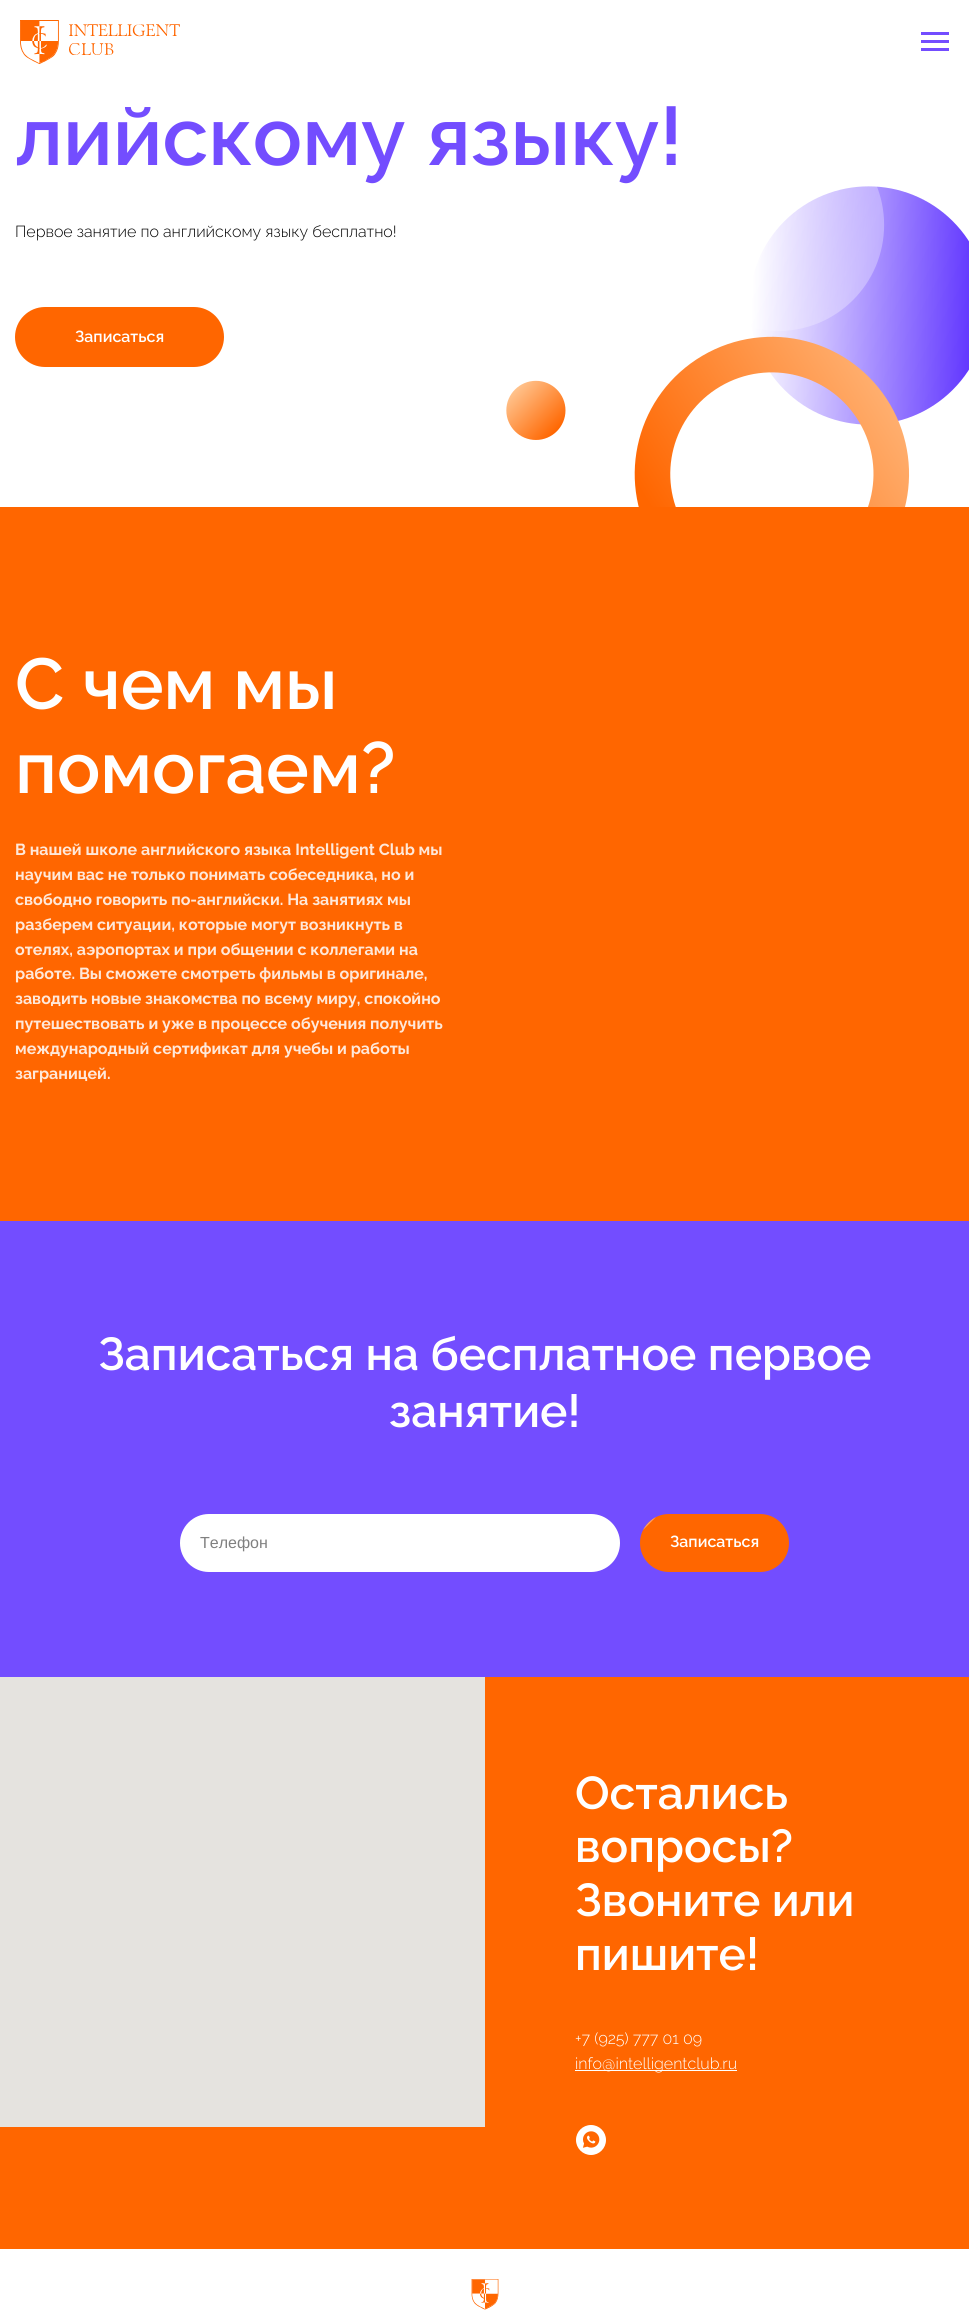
#include <cairo/cairo.h>
#include <math.h>
#include <stddef.h>


static void rounded_rect(cairo_t *cr, double x, double y, double w, double h, double r) {
  cairo_new_sub_path(cr);
  cairo_arc(cr, x + w - r, y + h - r, r, 0, M_PI / 2);
  cairo_arc(cr, x + r, y + h - r, r, M_PI / 2, M_PI);
  cairo_arc(cr, x + r, y + r, r, M_PI, 1.5 * M_PI);
  cairo_arc(cr, x + w - r, y + r, r, 1.5 * M_PI, 2 * M_PI);
  cairo_close_path(cr);
}

static void draw_image(cairo_t *cr, const char *path, double x, double y, double w, double h) {
  cairo_surface_t *image = cairo_image_surface_create_from_png(path);
  cairo_save(cr);
  cairo_set_source_surface(cr, image, x, y);
  cairo_rectangle(cr, x, y, w, h);
  cairo_fill(cr);
  cairo_restore(cr);
  cairo_surface_destroy(image);
}

static void draw(cairo_t *cr) {
  cairo_pattern_t *gradient;
  cairo_set_source_rgb(cr, 1, 1, 1);
  cairo_paint(cr);
  draw_image(cr, "images/1.png", 20, 20, 160, 44);
  cairo_set_source_rgb(cr, 115 / 255.0, 77 / 255.0, 1);
  cairo_rectangle(cr, 921, 32, 28, 3);
  cairo_fill(cr);
  cairo_rectangle(cr, 921, 40, 28, 3);
  cairo_fill(cr);
  cairo_rectangle(cr, 921, 48, 28, 3);
  cairo_fill(cr);
  draw_image(cr, "images/2.png", 0, 84, 969, 423);
  cairo_set_source_rgb(cr, 1, 102 / 255.0, 0);
  rounded_rect(cr, 15, 307, 209, 60, 30);
  cairo_fill(cr);
  cairo_rectangle(cr, 0, 507, 969, 714);
  cairo_fill(cr);
  cairo_set_source_rgb(cr, 115 / 255.0, 77 / 255.0, 1);
  cairo_rectangle(cr, 0, 1221, 969, 456);
  cairo_fill(cr);
  cairo_set_source_rgb(cr, 1, 1, 1);
  rounded_rect(cr, 180, 1514, 440, 58, 29);
  cairo_fill(cr);
  cairo_set_source_rgb(cr, 1, 102 / 255.0, 0);
  rounded_rect(cr, 640, 1514, 149, 58, 29);
  cairo_fill(cr);
  gradient = cairo_pattern_create_linear(585, 1543, 630, 1543);
  cairo_pattern_add_color_stop_rgba(gradient, 0, 1, 1, 1, 0.1);
  cairo_pattern_add_color_stop_rgba(gradient, 1, 1, 1, 1, 0.4);
  cairo_set_source(cr, gradient);
  cairo_pattern_destroy(gradient);
  cairo_new_path(cr);
  cairo_move_to(cr, 656, 1517);
  cairo_line_to(cr, 643, 1530);
  cairo_curve_to(cr, 646, 1524.5, 650.5, 1520, 656, 1517);
  cairo_close_path(cr);
  cairo_fill(cr);
  cairo_set_source_rgb(cr, 1, 102 / 255.0, 0);
  cairo_rectangle(cr, 0, 1677, 969, 572);
  cairo_fill(cr);
  cairo_set_source_rgb(cr, 229 / 255.0, 227 / 255.0, 223 / 255.0);
  cairo_rectangle(cr, 0, 1677, 485, 450);
  cairo_fill(cr);
  cairo_set_source_rgb(cr, 1, 1, 1);
  cairo_rectangle(cr, 575, 2070, 162, 1);
  cairo_fill(cr);
  draw_image(cr, "images/3.png", 576, 2125, 30, 30);
  draw_image(cr, "images/4.png", 471, 2279, 28, 31);
  cairo_select_font_face(cr, "Raleway SemiBold", CAIRO_FONT_SLANT_NORMAL, CAIRO_FONT_WEIGHT_NORMAL);
  cairo_set_font_size(cr, 82);
  cairo_set_source_rgb(cr, 115 / 255.0, 77 / 255.0, 1);
  cairo_move_to(cr, 15, 165);
  cairo_show_text(cr, "лийскому языку!");
  cairo_select_font_face(cr, "Raleway Light", CAIRO_FONT_SLANT_NORMAL, CAIRO_FONT_WEIGHT_NORMAL);
  cairo_set_font_size(cr, 16);
  cairo_set_source_rgb(cr, 0, 0, 0);
  cairo_move_to(cr, 15, 237);
  cairo_show_text(cr, "Первое занятие по английскому языку бесплатно!");
  cairo_select_font_face(cr, "Raleway SemiBold", CAIRO_FONT_SLANT_NORMAL, CAIRO_FONT_WEIGHT_NORMAL);
  cairo_set_source_rgb(cr, 1, 1, 1);
  cairo_move_to(cr, 75, 342);
  cairo_show_text(cr, "Записаться");
  cairo_set_font_size(cr, 72);
  cairo_move_to(cr, 15, 709);
  cairo_show_text(cr, "С чем мы");
  cairo_move_to(cr, 15, 793);
  cairo_show_text(cr, "помогаем?");
  cairo_select_font_face(cr, "Raleway", CAIRO_FONT_SLANT_NORMAL, CAIRO_FONT_WEIGHT_BOLD);
  cairo_set_font_size(cr, 16);
  cairo_set_source_rgb(cr, 1, 232 / 255.0, 217 / 255.0);
  cairo_move_to(cr, 15, 855);
  cairo_show_text(cr, "В нашей школе английского языка Intelligent Club мы");
  cairo_move_to(cr, 15, 880);
  cairo_show_text(cr, "научим вас не только понимать собеседника, но и");
  cairo_move_to(cr, 15, 905);
  cairo_show_text(cr, "свободно говорить по-английски. На занятиях мы");
  cairo_move_to(cr, 15, 930);
  cairo_show_text(cr, "разберем ситуации, которые могут возникнуть в");
  cairo_move_to(cr, 15, 955);
  cairo_show_text(cr, "отелях, аэропортах и при общении с коллегами на");
  cairo_move_to(cr, 15, 979);
  cairo_show_text(cr, "работе. Вы сможете смотреть фильмы в оригинале,");
  cairo_move_to(cr, 15, 1004);
  cairo_show_text(cr, "заводить новые знакомства по всему миру, спокойно");
  cairo_move_to(cr, 15, 1029);
  cairo_show_text(cr, "путешествовать и уже в процессе обучения получить");
  cairo_move_to(cr, 15, 1054);
  cairo_show_text(cr, "международный сертификат для учебы и работы");
  cairo_move_to(cr, 15, 1079);
  cairo_show_text(cr, "заграницей.");
  cairo_select_font_face(cr, "Raleway SemiBold", CAIRO_FONT_SLANT_NORMAL, CAIRO_FONT_WEIGHT_NORMAL);
  cairo_set_font_size(cr, 46);
  cairo_set_source_rgb(cr, 1, 1, 1);
  cairo_move_to(cr, 98, 1370);
  cairo_show_text(cr, "Записаться на бесплатное первое");
  cairo_move_to(cr, 389, 1427);
  cairo_show_text(cr, "занятие!");
  cairo_select_font_face(cr, "Liberation Sans", CAIRO_FONT_SLANT_NORMAL, CAIRO_FONT_WEIGHT_NORMAL);
  cairo_set_font_size(cr, 16);
  cairo_set_source_rgb(cr, 128 / 255.0, 128 / 255.0, 128 / 255.0);
  cairo_move_to(cr, 200, 1548);
  cairo_show_text(cr, "Телефон");
  cairo_select_font_face(cr, "Raleway SemiBold", CAIRO_FONT_SLANT_NORMAL, CAIRO_FONT_WEIGHT_NORMAL);
  cairo_set_source_rgb(cr, 1, 1, 1);
  cairo_move_to(cr, 670, 1547);
  cairo_show_text(cr, "Записаться");
  cairo_set_font_size(cr, 46);
  cairo_move_to(cr, 575, 1809);
  cairo_show_text(cr, "Остались");
  cairo_move_to(cr, 575, 1862);
  cairo_show_text(cr, "вопросы?");
  cairo_move_to(cr, 575, 1916);
  cairo_show_text(cr, "Звоните или");
  cairo_move_to(cr, 575, 1970);
  cairo_show_text(cr, "пишите!");
  cairo_select_font_face(cr, "Raleway Light", CAIRO_FONT_SLANT_NORMAL, CAIRO_FONT_WEIGHT_NORMAL);
  cairo_set_font_size(cr, 16);
  cairo_move_to(cr, 575, 2044);
  cairo_show_text(cr, "+7 (925) 777 01 09");
  cairo_move_to(cr, 575, 2069);
  cairo_show_text(cr, "info@intelligentclub.ru");
}

int main(void) {
  cairo_surface_t *surface = cairo_image_surface_create(CAIRO_FORMAT_RGB24, 969, 2313);
  cairo_t *cr = cairo_create(surface);
  cairo_font_options_t *options = cairo_font_options_create();
  cairo_font_options_set_hint_metrics(options, CAIRO_HINT_METRICS_OFF);
  cairo_font_options_set_hint_style(options, CAIRO_HINT_STYLE_NONE);
  cairo_set_font_options(cr, options);
  cairo_set_miter_limit(cr, 4);
  draw(cr);
  cairo_surface_write_to_png(surface, "out.png");
  cairo_font_options_destroy(options);
  cairo_destroy(cr);
  cairo_surface_destroy(surface);
  return 0;
}
